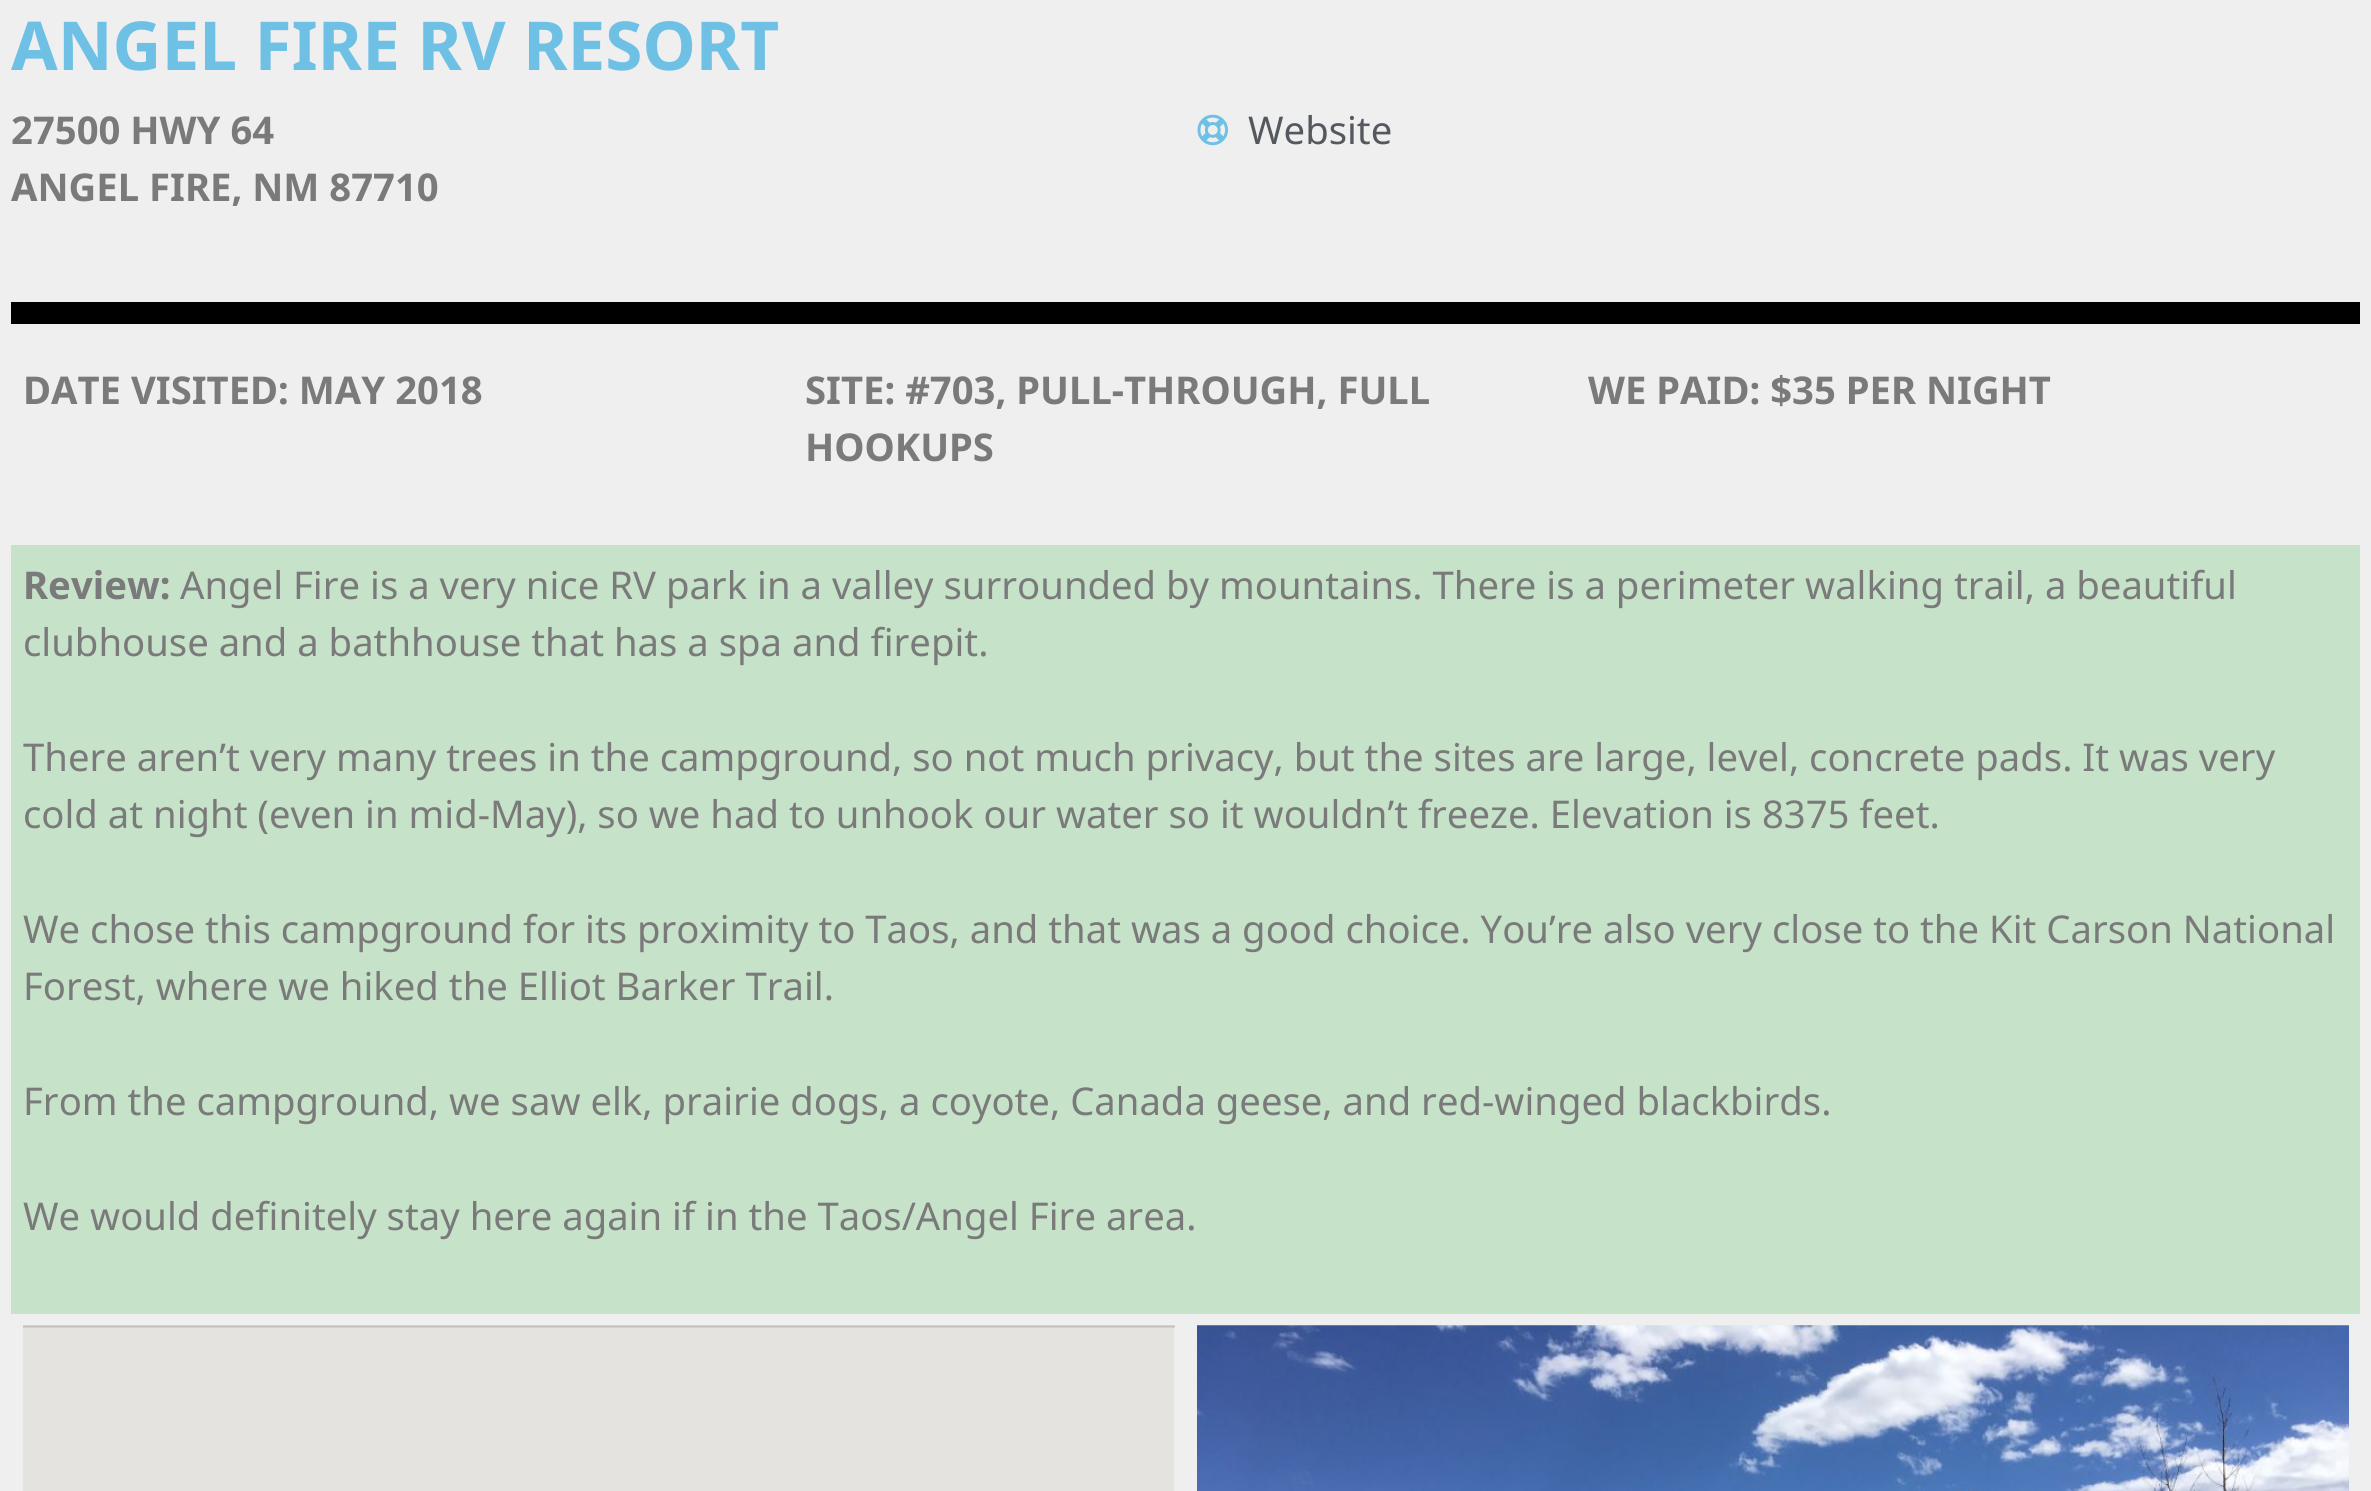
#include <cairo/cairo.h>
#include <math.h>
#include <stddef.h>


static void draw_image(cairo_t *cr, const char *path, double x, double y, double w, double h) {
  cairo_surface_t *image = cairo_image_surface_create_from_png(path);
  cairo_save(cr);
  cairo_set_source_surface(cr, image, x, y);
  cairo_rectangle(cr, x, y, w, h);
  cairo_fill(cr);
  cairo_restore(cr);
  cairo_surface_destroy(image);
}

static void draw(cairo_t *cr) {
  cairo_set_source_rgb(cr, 239 / 255.0, 239 / 255.0, 239 / 255.0);
  cairo_paint(cr);
  draw_image(cr, "images/1.png", 1197, 114, 31, 32);
  cairo_set_source_rgb(cr, 0, 0, 0);
  cairo_rectangle(cr, 11, 302, 2349, 22);
  cairo_fill(cr);
  cairo_set_source_rgb(cr, 198 / 255.0, 227 / 255.0, 202 / 255.0);
  cairo_rectangle(cr, 11, 545, 2349, 769);
  cairo_fill(cr);
  draw_image(cr, "images/2.png", 23, 1325, 1152, 166);
  draw_image(cr, "images/3.png", 1197, 1325, 1152, 166);
  cairo_select_font_face(cr, "Noto Sans", CAIRO_FONT_SLANT_NORMAL, CAIRO_FONT_WEIGHT_BOLD);
  cairo_set_font_size(cr, 67.5);
  cairo_set_source_rgb(cr, 110 / 255.0, 193 / 255.0, 228 / 255.0);
  cairo_move_to(cr, 11, 70);
  cairo_show_text(cr, "ANGEL FIRE RV RESORT");
  cairo_set_font_size(cr, 38.25);
  cairo_set_source_rgb(cr, 122 / 255.0, 122 / 255.0, 122 / 255.0);
  cairo_move_to(cr, 11, 144);
  cairo_show_text(cr, "27500 HWY 64");
  cairo_move_to(cr, 11, 201);
  cairo_show_text(cr, "ANGEL FIRE, NM 87710");
  cairo_select_font_face(cr, "Noto Sans", CAIRO_FONT_SLANT_NORMAL, CAIRO_FONT_WEIGHT_NORMAL);
  cairo_set_source_rgb(cr, 84 / 255.0, 89 / 255.0, 95 / 255.0);
  cairo_move_to(cr, 1248, 144);
  cairo_show_text(cr, "Website");
  cairo_select_font_face(cr, "Noto Sans", CAIRO_FONT_SLANT_NORMAL, CAIRO_FONT_WEIGHT_BOLD);
  cairo_set_source_rgb(cr, 122 / 255.0, 122 / 255.0, 122 / 255.0);
  cairo_move_to(cr, 23, 404);
  cairo_show_text(cr, "DATE VISITED: MAY 2018");
  cairo_move_to(cr, 805, 404);
  cairo_show_text(cr, "SITE: #703, PULL-THROUGH, FULL");
  cairo_move_to(cr, 805, 461);
  cairo_show_text(cr, "HOOKUPS");
  cairo_move_to(cr, 1588, 404);
  cairo_show_text(cr, "WE PAID: $35 PER NIGHT");
  cairo_move_to(cr, 23, 599);
  cairo_show_text(cr, "Review:");
  cairo_select_font_face(cr, "Noto Sans", CAIRO_FONT_SLANT_NORMAL, CAIRO_FONT_WEIGHT_NORMAL);
  cairo_move_to(cr, 180, 599);
  cairo_show_text(cr, "Angel Fire is a very nice RV park in a valley surrounded by mountains. There is a perimeter walking trail, a beautiful");
  cairo_move_to(cr, 23, 656);
  cairo_show_text(cr, "clubhouse and a bathhouse that has a spa and firepit.");
  cairo_move_to(cr, 23, 771);
  cairo_show_text(cr, "There aren’t very many trees in the campground, so not much privacy, but the sites are large, level, concrete pads. It was very");
  cairo_move_to(cr, 23, 828);
  cairo_show_text(cr, "cold at night (even in mid-May), so we had to unhook our water so it wouldn’t freeze. Elevation is 8375 feet.");
  cairo_move_to(cr, 23, 943);
  cairo_show_text(cr, "We chose this campground for its proximity to Taos, and that was a good choice. You’re also very close to the Kit Carson National");
  cairo_move_to(cr, 23, 1000);
  cairo_show_text(cr, "Forest, where we hiked the Elliot Barker Trail.");
  cairo_move_to(cr, 23, 1115);
  cairo_show_text(cr, "From the campground, we saw elk, prairie dogs, a coyote, Canada geese, and red-winged blackbirds.");
  cairo_move_to(cr, 23, 1230);
  cairo_show_text(cr, "We would definitely stay here again if in the Taos/Angel Fire area.");
}

int main(void) {
  cairo_surface_t *surface = cairo_image_surface_create(CAIRO_FORMAT_RGB24, 2371, 1491);
  cairo_t *cr = cairo_create(surface);
  cairo_font_options_t *options = cairo_font_options_create();
  cairo_font_options_set_hint_metrics(options, CAIRO_HINT_METRICS_OFF);
  cairo_font_options_set_hint_style(options, CAIRO_HINT_STYLE_NONE);
  cairo_set_font_options(cr, options);
  cairo_set_miter_limit(cr, 4);
  draw(cr);
  cairo_surface_write_to_png(surface, "out.png");
  cairo_font_options_destroy(options);
  cairo_destroy(cr);
  cairo_surface_destroy(surface);
  return 0;
}
